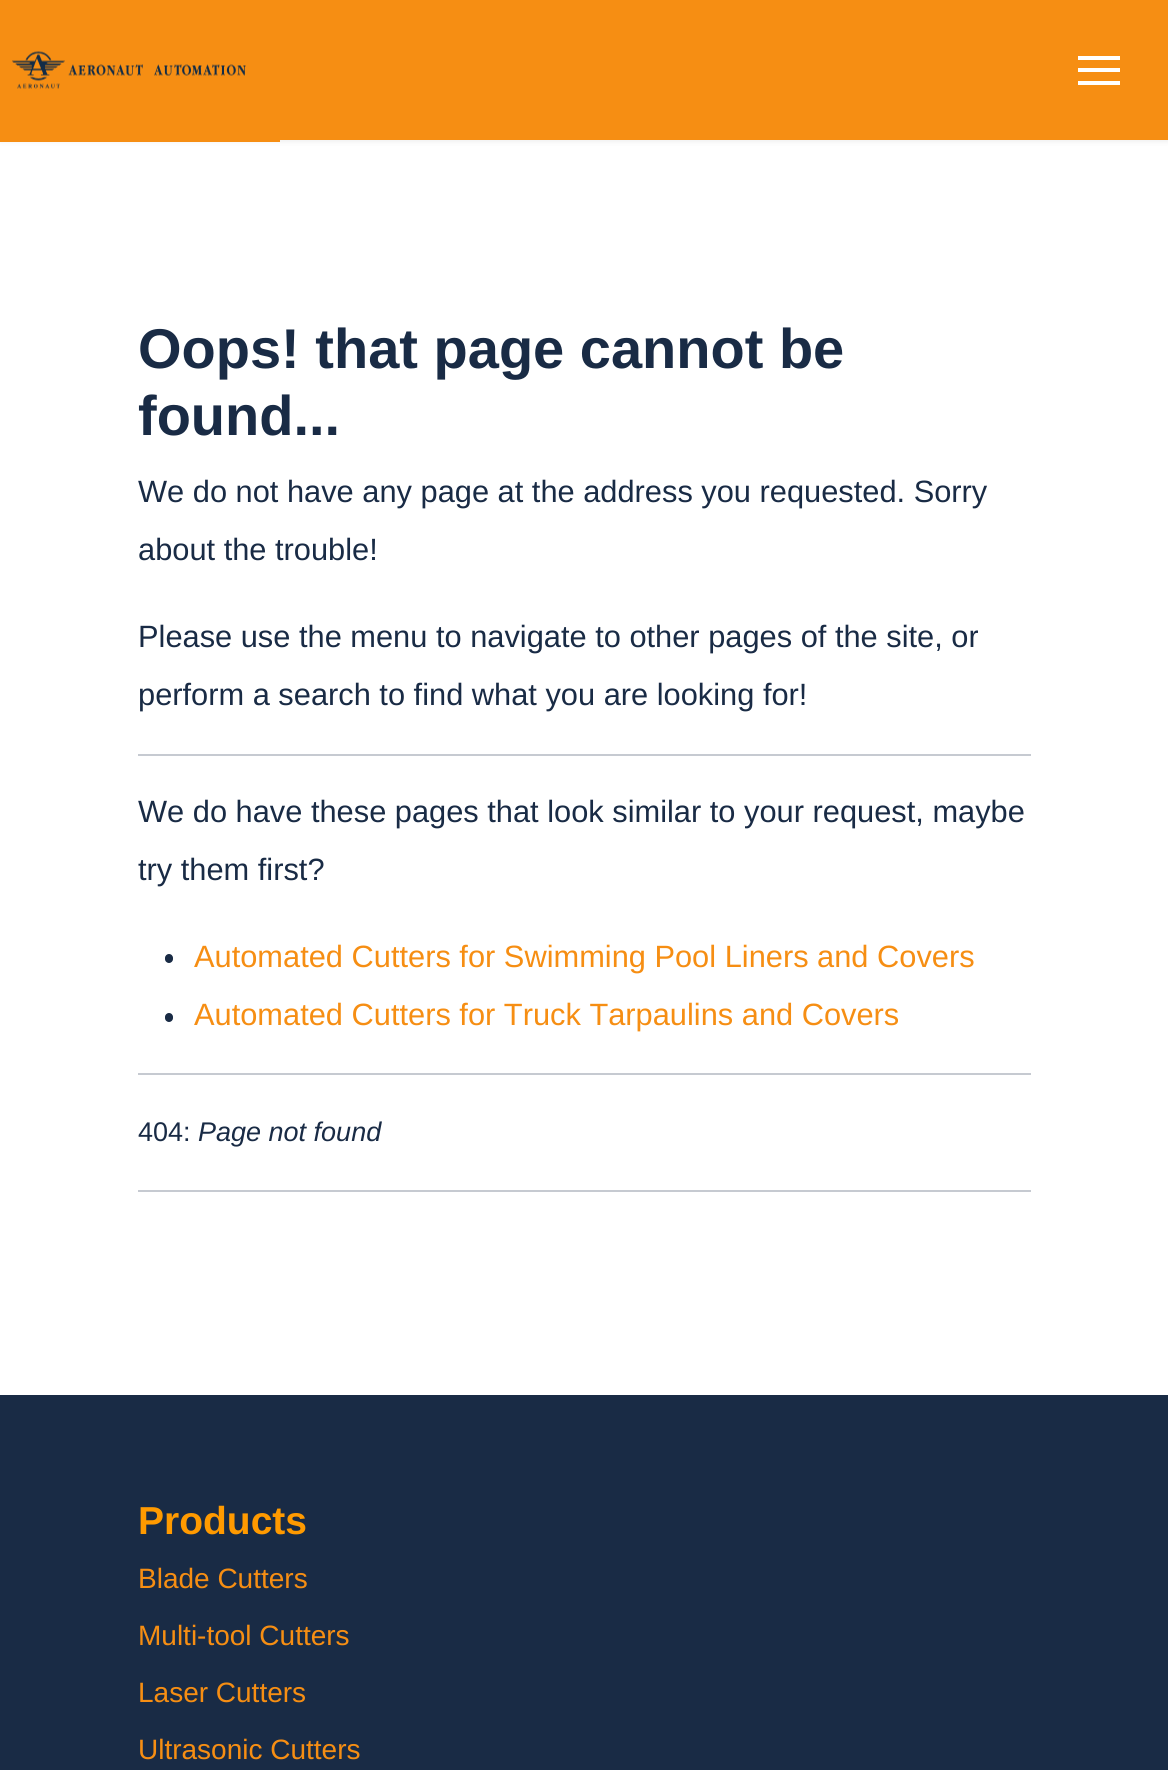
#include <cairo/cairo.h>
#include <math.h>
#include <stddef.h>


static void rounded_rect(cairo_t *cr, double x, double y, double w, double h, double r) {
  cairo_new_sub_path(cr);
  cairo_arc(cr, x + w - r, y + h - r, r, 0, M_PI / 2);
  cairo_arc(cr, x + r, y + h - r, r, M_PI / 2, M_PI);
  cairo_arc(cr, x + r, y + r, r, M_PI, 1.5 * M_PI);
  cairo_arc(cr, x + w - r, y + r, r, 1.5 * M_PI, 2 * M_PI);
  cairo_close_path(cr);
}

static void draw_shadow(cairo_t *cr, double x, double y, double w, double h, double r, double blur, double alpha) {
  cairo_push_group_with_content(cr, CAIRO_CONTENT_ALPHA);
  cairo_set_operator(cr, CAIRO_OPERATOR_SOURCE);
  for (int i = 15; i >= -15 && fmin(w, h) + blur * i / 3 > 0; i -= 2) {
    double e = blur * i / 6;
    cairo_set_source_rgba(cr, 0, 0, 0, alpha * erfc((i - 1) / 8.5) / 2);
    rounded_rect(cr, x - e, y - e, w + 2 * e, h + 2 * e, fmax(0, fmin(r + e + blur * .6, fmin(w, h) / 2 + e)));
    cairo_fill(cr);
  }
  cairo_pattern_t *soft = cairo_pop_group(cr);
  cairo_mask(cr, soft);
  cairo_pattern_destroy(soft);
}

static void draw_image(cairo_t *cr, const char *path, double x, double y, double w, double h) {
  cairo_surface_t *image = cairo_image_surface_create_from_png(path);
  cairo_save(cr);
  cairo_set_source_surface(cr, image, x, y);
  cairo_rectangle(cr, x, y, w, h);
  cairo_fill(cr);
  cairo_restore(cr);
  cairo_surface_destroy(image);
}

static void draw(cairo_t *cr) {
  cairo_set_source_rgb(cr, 1, 1, 1);
  cairo_paint(cr);
  cairo_set_source_rgb(cr, 0, 0, 0);
  draw_shadow(cr, 0, 0, 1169, 140, 0, 3.5, 0.1);
  cairo_set_source_rgb(cr, 246 / 255.0, 142 / 255.0, 19 / 255.0);
  cairo_rectangle(cr, 280, 0, 888, 140);
  cairo_fill(cr);
  cairo_rectangle(cr, 0, 0, 280, 142);
  cairo_fill(cr);
  draw_image(cr, "images/1.png", 12, 51, 234, 38);
  cairo_set_source_rgb(cr, 1, 1, 1);
  cairo_rectangle(cr, 1078, 56, 42, 4);
  cairo_fill(cr);
  cairo_rectangle(cr, 1078, 68, 42, 4);
  cairo_fill(cr);
  cairo_rectangle(cr, 1078, 81, 42, 4);
  cairo_fill(cr);
  cairo_set_source_rgb(cr, 198 / 255.0, 202 / 255.0, 209 / 255.0);
  cairo_rectangle(cr, 138, 754, 893, 2);
  cairo_fill(cr);
  cairo_set_source_rgb(cr, 25 / 255.0, 43 / 255.0, 69 / 255.0);
  rounded_rect(cr, 165, 954, 8, 9, 4);
  cairo_fill(cr);
  rounded_rect(cr, 165, 1013, 8, 9, 4);
  cairo_fill(cr);
  cairo_set_source_rgb(cr, 198 / 255.0, 202 / 255.0, 209 / 255.0);
  cairo_rectangle(cr, 138, 1073, 893, 2);
  cairo_fill(cr);
  cairo_rectangle(cr, 138, 1190, 893, 2);
  cairo_fill(cr);
  cairo_set_source_rgb(cr, 25 / 255.0, 43 / 255.0, 69 / 255.0);
  cairo_rectangle(cr, 0, 1395, 1168, 375);
  cairo_fill(cr);
  cairo_select_font_face(cr, "Liberation Sans", CAIRO_FONT_SLANT_NORMAL, CAIRO_FONT_WEIGHT_BOLD);
  cairo_set_font_size(cr, 56);
  cairo_move_to(cr, 138, 368);
  cairo_show_text(cr, "Oops! that page cannot be");
  cairo_move_to(cr, 138, 435);
  cairo_show_text(cr, "found...");
  cairo_select_font_face(cr, "Liberation Sans", CAIRO_FONT_SLANT_NORMAL, CAIRO_FONT_WEIGHT_NORMAL);
  cairo_set_font_size(cr, 30.8);
  cairo_move_to(cr, 138, 502);
  cairo_show_text(cr, "We do not have any page at the address you requested. Sorry");
  cairo_move_to(cr, 138, 560);
  cairo_show_text(cr, "about the trouble!");
  cairo_move_to(cr, 138, 647);
  cairo_show_text(cr, "Please use the menu to navigate to other pages of the site, or");
  cairo_move_to(cr, 138, 705);
  cairo_show_text(cr, "perform a search to find what you are looking for!");
  cairo_move_to(cr, 138, 822);
  cairo_show_text(cr, "We do have these pages that look similar to your request, maybe");
  cairo_move_to(cr, 138, 880);
  cairo_show_text(cr, "try them first?");
  cairo_set_source_rgb(cr, 246 / 255.0, 142 / 255.0, 19 / 255.0);
  cairo_move_to(cr, 194, 967);
  cairo_show_text(cr, "Automated Cutters for Swimming Pool Liners and Covers");
  cairo_move_to(cr, 194, 1025);
  cairo_show_text(cr, "Automated Cutters for Truck Tarpaulins and Covers");
  cairo_set_font_size(cr, 27);
  cairo_set_source_rgb(cr, 25 / 255.0, 43 / 255.0, 69 / 255.0);
  cairo_move_to(cr, 138, 1141);
  cairo_show_text(cr, "404:");
  cairo_select_font_face(cr, "Liberation Sans", CAIRO_FONT_SLANT_ITALIC, CAIRO_FONT_WEIGHT_NORMAL);
  cairo_move_to(cr, 198, 1141);
  cairo_show_text(cr, "Page not found");
  cairo_select_font_face(cr, "Liberation Sans", CAIRO_FONT_SLANT_NORMAL, CAIRO_FONT_WEIGHT_BOLD);
  cairo_set_font_size(cr, 39);
  cairo_set_source_rgb(cr, 1, 154 / 255.0, 0);
  cairo_move_to(cr, 138, 1534);
  cairo_show_text(cr, "Products");
  cairo_select_font_face(cr, "Liberation Sans", CAIRO_FONT_SLANT_NORMAL, CAIRO_FONT_WEIGHT_NORMAL);
  cairo_set_font_size(cr, 28);
  cairo_set_source_rgb(cr, 246 / 255.0, 142 / 255.0, 19 / 255.0);
  cairo_move_to(cr, 138, 1588);
  cairo_show_text(cr, "Blade Cutters");
  cairo_move_to(cr, 138, 1645);
  cairo_show_text(cr, "Multi-tool Cutters");
  cairo_move_to(cr, 138, 1702);
  cairo_show_text(cr, "Laser Cutters");
  cairo_move_to(cr, 138, 1759);
  cairo_show_text(cr, "Ultrasonic Cutters");
}

int main(void) {
  cairo_surface_t *surface = cairo_image_surface_create(CAIRO_FORMAT_RGB24, 1168, 1770);
  cairo_t *cr = cairo_create(surface);
  cairo_font_options_t *options = cairo_font_options_create();
  cairo_font_options_set_hint_metrics(options, CAIRO_HINT_METRICS_OFF);
  cairo_font_options_set_hint_style(options, CAIRO_HINT_STYLE_NONE);
  cairo_set_font_options(cr, options);
  cairo_set_miter_limit(cr, 4);
  draw(cr);
  cairo_surface_write_to_png(surface, "out.png");
  cairo_font_options_destroy(options);
  cairo_destroy(cr);
  cairo_surface_destroy(surface);
  return 0;
}
